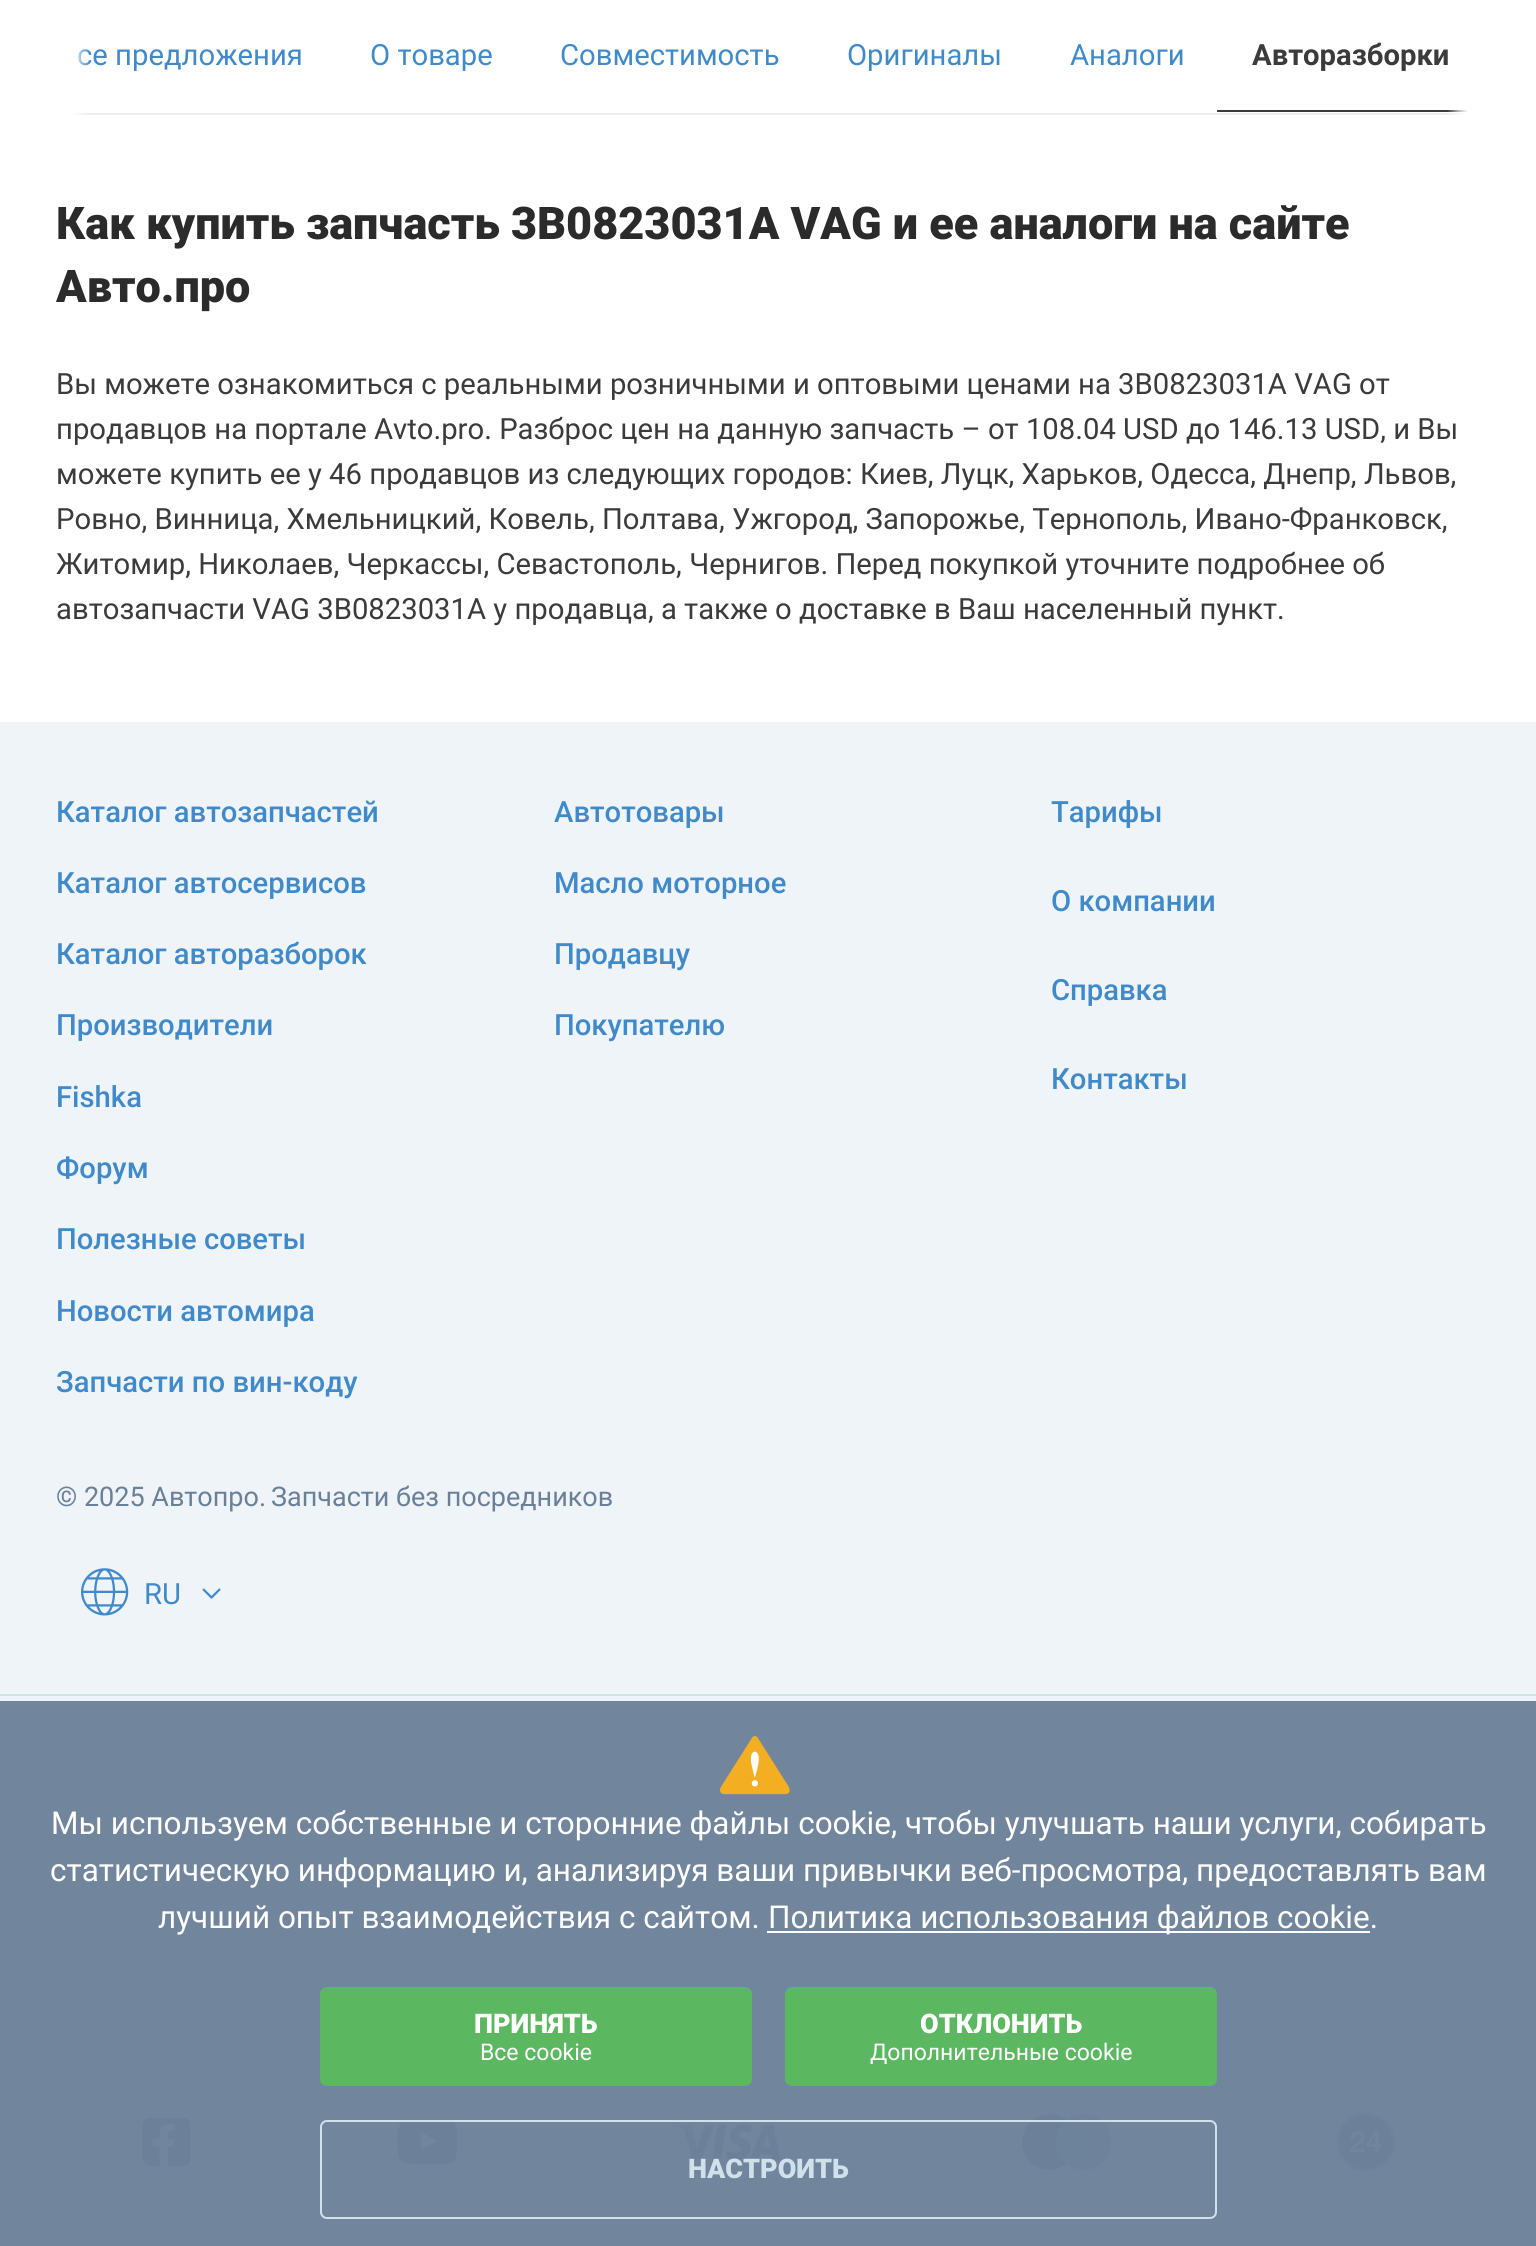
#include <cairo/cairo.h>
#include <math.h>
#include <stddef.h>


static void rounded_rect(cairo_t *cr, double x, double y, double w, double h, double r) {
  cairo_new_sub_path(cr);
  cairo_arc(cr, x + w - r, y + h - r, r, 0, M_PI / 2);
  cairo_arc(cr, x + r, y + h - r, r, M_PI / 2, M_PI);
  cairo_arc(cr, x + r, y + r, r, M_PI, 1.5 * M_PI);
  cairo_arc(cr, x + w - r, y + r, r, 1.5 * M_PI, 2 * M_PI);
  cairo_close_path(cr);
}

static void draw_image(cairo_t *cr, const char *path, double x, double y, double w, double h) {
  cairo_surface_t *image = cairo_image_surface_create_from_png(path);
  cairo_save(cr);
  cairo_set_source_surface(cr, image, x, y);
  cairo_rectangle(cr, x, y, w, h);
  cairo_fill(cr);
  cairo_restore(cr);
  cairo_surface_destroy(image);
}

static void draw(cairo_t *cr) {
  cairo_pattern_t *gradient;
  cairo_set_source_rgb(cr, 1, 1, 1);
  cairo_paint(cr);
  cairo_set_source_rgb(cr, 237 / 255.0, 237 / 255.0, 237 / 255.0);
  cairo_rectangle(cr, 69, 113, 1399, 2);
  cairo_fill(cr);
  cairo_set_source_rgb(cr, 59 / 255.0, 59 / 255.0, 59 / 255.0);
  cairo_rectangle(cr, 1217, 110, 251, 2);
  cairo_fill(cr);
  cairo_set_source_rgb(cr, 238 / 255.0, 244 / 255.0, 247 / 255.0);
  cairo_rectangle(cr, 0, 722, 1536, 979);
  cairo_fill(cr);
  cairo_set_source_rgb(cr, 113 / 255.0, 133 / 255.0, 157 / 255.0);
  cairo_rectangle(cr, 0, 1701, 1536, 545);
  cairo_fill(cr);
  draw_image(cr, "images/1.png", 81, 1568, 48, 48);
  draw_image(cr, "images/2.png", 202, 1588, 19, 11);
  cairo_set_source_rgb(cr, 209 / 255.0, 225 / 255.0, 236 / 255.0);
  cairo_rectangle(cr, 0, 1694, 1536, 2);
  cairo_fill(cr);
  draw_image(cr, "images/3.png", 142, 2118, 49, 48);
  cairo_set_source_rgb(cr, 108 / 255.0, 129 / 255.0, 153 / 255.0);
  cairo_new_path(cr);
  cairo_move_to(cr, 428, 2164);
  cairo_line_to(cr, 411, 2164);
  cairo_curve_to(cr, 399, 2163, 398, 2159, 398, 2148);
  cairo_curve_to(cr, 397, 2141, 396, 2123, 404, 2121);
  cairo_line_to(cr, 426, 2120);
  cairo_line_to(cr, 445, 2120);
  cairo_line_to(cr, 452, 2121);
  cairo_curve_to(cr, 458, 2123, 457, 2135, 457, 2140);
  cairo_curve_to(cr, 458, 2168, 453, 2164, 428, 2164);
  cairo_close_path(cr);
  cairo_move_to(cr, 421, 2150);
  cairo_line_to(cr, 437, 2141);
  cairo_line_to(cr, 421, 2132);
  cairo_close_path(cr);
  cairo_fill(cr);
  draw_image(cr, "images/4.png", 675, 2124, 106, 36);
  cairo_set_source_rgb(cr, 109 / 255.0, 130 / 255.0, 155 / 255.0);
  cairo_rectangle(cr, 1056, 2122, 22, 42);
  cairo_fill(cr);
  cairo_set_source_rgb(cr, 108 / 255.0, 129 / 255.0, 153 / 255.0);
  cairo_new_path(cr);
  cairo_move_to(cr, 1056, 2142);
  cairo_curve_to(cr, 1056, 2133, 1060, 2125, 1067, 2120);
  cairo_curve_to(cr, 1062, 2116, 1055, 2114, 1049, 2114);
  cairo_curve_to(cr, 1017, 2115, 1012, 2162, 1043, 2169);
  cairo_curve_to(cr, 1051, 2171, 1060, 2169, 1067, 2164);
  cairo_curve_to(cr, 1060, 2159, 1056, 2151, 1056, 2142);
  cairo_close_path(cr);
  cairo_fill(cr);
  cairo_set_source_rgb(cr, 110 / 255.0, 131 / 255.0, 155 / 255.0);
  cairo_new_path(cr);
  cairo_move_to(cr, 1111, 2142);
  cairo_curve_to(cr, 1111, 2165, 1085, 2179, 1067, 2164);
  cairo_curve_to(cr, 1081, 2153, 1081, 2131, 1067, 2120);
  cairo_curve_to(cr, 1085, 2105, 1111, 2119, 1111, 2142);
  cairo_close_path(cr);
  cairo_fill(cr);
  draw_image(cr, "images/5.png", 1337, 2113, 58, 58);
  draw_image(cr, "images/6.png", 720, 1736, 70, 59);
  cairo_set_source_rgb(cr, 1, 1, 1);
  cairo_rectangle(cr, 767, 1931, 603, 2);
  cairo_fill(cr);
  cairo_set_source_rgb(cr, 92 / 255.0, 184 / 255.0, 96 / 255.0);
  rounded_rect(cr, 320, 1987, 432, 99, 7);
  cairo_fill(cr);
  rounded_rect(cr, 785, 1987, 432, 99, 7);
  cairo_fill(cr);
  rounded_rect(cr, 321, 2121, 895, 97, 6);
  cairo_set_source_rgb(cr, 209 / 255.0, 225 / 255.0, 236 / 255.0);
  cairo_stroke(cr);
  cairo_select_font_face(cr, "Roboto", CAIRO_FONT_SLANT_NORMAL, CAIRO_FONT_WEIGHT_NORMAL);
  cairo_set_font_size(cr, 29.25);
  cairo_set_source_rgb(cr, 65 / 255.0, 138 / 255.0, 202 / 255.0);
  cairo_move_to(cr, 77, 65);
  cairo_show_text(cr, "се предложения");
  cairo_move_to(cr, 370, 65);
  cairo_show_text(cr, "О товаре");
  cairo_move_to(cr, 560, 65);
  cairo_show_text(cr, "Совместимость");
  cairo_move_to(cr, 847, 65);
  cairo_show_text(cr, "Оригиналы");
  cairo_move_to(cr, 1070, 65);
  cairo_show_text(cr, "Аналоги");
  cairo_select_font_face(cr, "Roboto", CAIRO_FONT_SLANT_NORMAL, CAIRO_FONT_WEIGHT_BOLD);
  cairo_set_source_rgb(cr, 59 / 255.0, 59 / 255.0, 59 / 255.0);
  cairo_move_to(cr, 1252, 65);
  cairo_show_text(cr, "Авторазборки");
  gradient = cairo_pattern_create_linear(90, 57, 56, 57);
  cairo_pattern_add_color_stop_rgba(gradient, 0, 1, 1, 1, 0);
  cairo_pattern_add_color_stop_rgba(gradient, 0.32, 1, 1, 1, 0.58);
  cairo_pattern_add_color_stop_rgba(gradient, 0.61, 1, 1, 1, 1);
  cairo_set_source(cr, gradient);
  cairo_pattern_destroy(gradient);
  cairo_rectangle(cr, 69, 49, 21, 66);
  cairo_fill(cr);
  gradient = cairo_pattern_create_linear(1447, 57, 1481, 57);
  cairo_pattern_add_color_stop_rgba(gradient, 0, 1, 1, 1, 0);
  cairo_pattern_add_color_stop_rgba(gradient, 0.32, 1, 1, 1, 0.58);
  cairo_pattern_add_color_stop_rgba(gradient, 0.61, 1, 1, 1, 1);
  cairo_set_source(cr, gradient);
  cairo_pattern_destroy(gradient);
  cairo_rectangle(cr, 1447, 50, 21, 65);
  cairo_fill(cr);
  cairo_select_font_face(cr, "Roboto Black", CAIRO_FONT_SLANT_NORMAL, CAIRO_FONT_WEIGHT_NORMAL);
  cairo_set_font_size(cr, 45);
  cairo_set_source_rgb(cr, 43 / 255.0, 43 / 255.0, 43 / 255.0);
  cairo_move_to(cr, 56, 239);
  cairo_show_text(cr, "Как купить запчасть 3B0823031A VAG и ее аналоги на сайте");
  cairo_move_to(cr, 56, 302);
  cairo_show_text(cr, "Авто.про");
  cairo_select_font_face(cr, "Roboto", CAIRO_FONT_SLANT_NORMAL, CAIRO_FONT_WEIGHT_NORMAL);
  cairo_set_font_size(cr, 29.25);
  cairo_set_source_rgb(cr, 59 / 255.0, 59 / 255.0, 59 / 255.0);
  cairo_move_to(cr, 56, 394);
  cairo_show_text(cr, "Вы можете ознакомиться с реальными розничными и оптовыми ценами на 3B0823031A VAG от");
  cairo_move_to(cr, 56, 439);
  cairo_show_text(cr, "продавцов на портале Avto.pro. Разброс цен на данную запчасть – от 108.04 USD до 146.13 USD, и Вы");
  cairo_move_to(cr, 56, 484);
  cairo_show_text(cr, "можете купить ее у 46 продавцов из следующих городов: Киев, Луцк, Харьков, Одесса, Днепр, Львов,");
  cairo_move_to(cr, 56, 529);
  cairo_show_text(cr, "Ровно, Винница, Хмельницкий, Ковель, Полтава, Ужгород, Запорожье, Тернополь, Ивано-Франковск,");
  cairo_move_to(cr, 56, 574);
  cairo_show_text(cr, "Житомир, Николаев, Черкассы, Севастополь, Чернигов. Перед покупкой уточните подробнее об");
  cairo_move_to(cr, 56, 619);
  cairo_show_text(cr, "автозапчасти VAG 3B0823031A у продавца, а также о доставке в Ваш населенный пункт.");
  cairo_select_font_face(cr, "Roboto Medium", CAIRO_FONT_SLANT_NORMAL, CAIRO_FONT_WEIGHT_NORMAL);
  cairo_set_source_rgb(cr, 65 / 255.0, 138 / 255.0, 202 / 255.0);
  cairo_move_to(cr, 56, 822);
  cairo_show_text(cr, "Каталог автозапчастей");
  cairo_move_to(cr, 56, 893);
  cairo_show_text(cr, "Каталог автосервисов");
  cairo_move_to(cr, 56, 964);
  cairo_show_text(cr, "Каталог авторазборок");
  cairo_move_to(cr, 56, 1035);
  cairo_show_text(cr, "Производители");
  cairo_move_to(cr, 56, 1107);
  cairo_show_text(cr, "Fishka");
  cairo_move_to(cr, 554, 822);
  cairo_show_text(cr, "Автотовары");
  cairo_move_to(cr, 554, 893);
  cairo_show_text(cr, "Масло моторное");
  cairo_move_to(cr, 554, 964);
  cairo_show_text(cr, "Продавцу");
  cairo_move_to(cr, 554, 1035);
  cairo_show_text(cr, "Покупателю");
  cairo_move_to(cr, 1051, 822);
  cairo_show_text(cr, "Тарифы");
  cairo_move_to(cr, 1051, 911);
  cairo_show_text(cr, "О компании");
  cairo_move_to(cr, 1051, 1000);
  cairo_show_text(cr, "Справка");
  cairo_move_to(cr, 1051, 1089);
  cairo_show_text(cr, "Контакты");
  cairo_move_to(cr, 56, 1178);
  cairo_show_text(cr, "Форум");
  cairo_move_to(cr, 56, 1249);
  cairo_show_text(cr, "Полезные советы");
  cairo_move_to(cr, 56, 1321);
  cairo_show_text(cr, "Новости автомира");
  cairo_move_to(cr, 56, 1392);
  cairo_show_text(cr, "Запчасти по вин-коду");
  cairo_select_font_face(cr, "Roboto", CAIRO_FONT_SLANT_NORMAL, CAIRO_FONT_WEIGHT_NORMAL);
  cairo_set_font_size(cr, 27);
  cairo_set_source_rgb(cr, 106 / 255.0, 127 / 255.0, 152 / 255.0);
  cairo_move_to(cr, 56, 1506);
  cairo_show_text(cr, "© 2025 Автопро.");
  cairo_move_to(cr, 271, 1506);
  cairo_show_text(cr, "Запчасти без посредников");
  cairo_set_font_size(cr, 29.25);
  cairo_set_source_rgb(cr, 65 / 255.0, 138 / 255.0, 202 / 255.0);
  cairo_move_to(cr, 144, 1604);
  cairo_show_text(cr, "RU");
  cairo_set_font_size(cr, 31.5);
  cairo_set_source_rgb(cr, 1, 1, 1);
  cairo_move_to(cr, 51, 1834);
  cairo_show_text(cr, "Мы используем собственные и сторонние файлы cookie, чтобы улучшать наши услуги, собирать");
  cairo_move_to(cr, 50, 1881);
  cairo_show_text(cr, "статистическую информацию и, анализируя ваши привычки веб-просмотра, предоставлять вам");
  cairo_move_to(cr, 158, 1928);
  cairo_show_text(cr, "лучший опыт взаимодействия с сайтом.");
  cairo_move_to(cr, 768, 1928);
  cairo_show_text(cr, "Политика использования файлов cookie.");
  cairo_select_font_face(cr, "Roboto Black", CAIRO_FONT_SLANT_NORMAL, CAIRO_FONT_WEIGHT_NORMAL);
  cairo_set_font_size(cr, 27);
  cairo_move_to(cr, 474, 2033);
  cairo_show_text(cr, "ПРИНЯТЬ");
  cairo_select_font_face(cr, "Roboto", CAIRO_FONT_SLANT_NORMAL, CAIRO_FONT_WEIGHT_NORMAL);
  cairo_set_font_size(cr, 23);
  cairo_move_to(cr, 480, 2060);
  cairo_show_text(cr, "Все cookie");
  cairo_select_font_face(cr, "Roboto Black", CAIRO_FONT_SLANT_NORMAL, CAIRO_FONT_WEIGHT_NORMAL);
  cairo_set_font_size(cr, 27);
  cairo_move_to(cr, 920, 2033);
  cairo_show_text(cr, "ОТКЛОНИТЬ");
  cairo_select_font_face(cr, "Roboto", CAIRO_FONT_SLANT_NORMAL, CAIRO_FONT_WEIGHT_NORMAL);
  cairo_set_font_size(cr, 23);
  cairo_move_to(cr, 870, 2060);
  cairo_show_text(cr, "Дополнительные cookie");
  cairo_select_font_face(cr, "Roboto Black", CAIRO_FONT_SLANT_NORMAL, CAIRO_FONT_WEIGHT_NORMAL);
  cairo_set_font_size(cr, 27);
  cairo_set_source_rgb(cr, 209 / 255.0, 225 / 255.0, 236 / 255.0);
  cairo_move_to(cr, 688, 2178);
  cairo_show_text(cr, "НАСТРОИТЬ");
}

int main(void) {
  cairo_surface_t *surface = cairo_image_surface_create(CAIRO_FORMAT_RGB24, 1536, 2246);
  cairo_t *cr = cairo_create(surface);
  cairo_font_options_t *options = cairo_font_options_create();
  cairo_font_options_set_hint_metrics(options, CAIRO_HINT_METRICS_OFF);
  cairo_font_options_set_hint_style(options, CAIRO_HINT_STYLE_NONE);
  cairo_set_font_options(cr, options);
  cairo_set_miter_limit(cr, 4);
  draw(cr);
  cairo_surface_write_to_png(surface, "out.png");
  cairo_font_options_destroy(options);
  cairo_destroy(cr);
  cairo_surface_destroy(surface);
  return 0;
}
